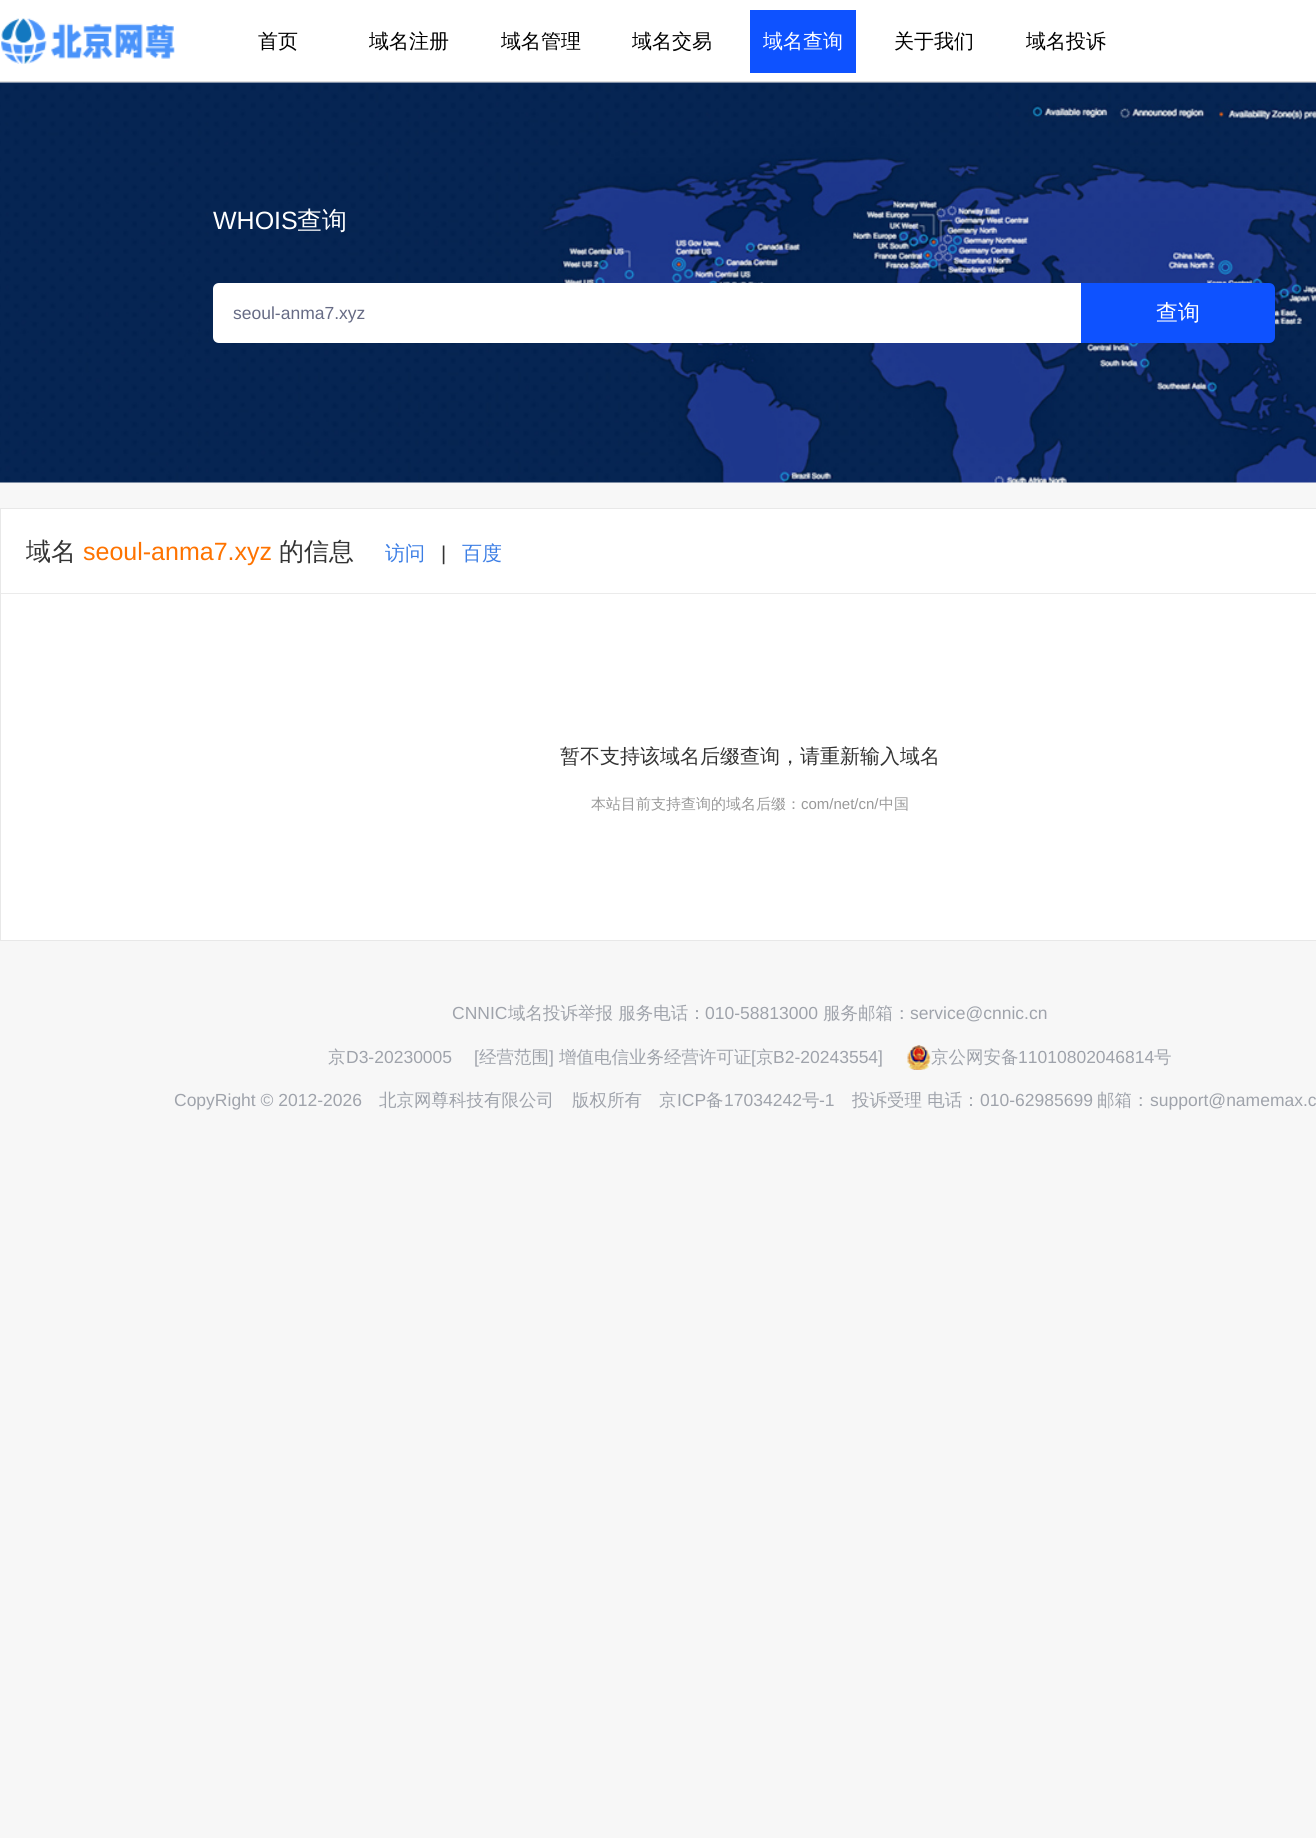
#include <cairo/cairo.h>
#include <math.h>
#include <stddef.h>


static void draw_image(cairo_t *cr, const char *path, double x, double y, double w, double h) {
  cairo_surface_t *image = cairo_image_surface_create_from_png(path);
  cairo_save(cr);
  cairo_set_source_surface(cr, image, x, y);
  cairo_rectangle(cr, x, y, w, h);
  cairo_fill(cr);
  cairo_restore(cr);
  cairo_surface_destroy(image);
}

static void draw(cairo_t *cr) {
  cairo_set_source_rgb(cr, 247 / 255.0, 247 / 255.0, 247 / 255.0);
  cairo_paint(cr);
  cairo_set_source_rgb(cr, 1, 1, 1);
  cairo_rectangle(cr, 0, 0, 1316, 83);
  cairo_fill(cr);
  cairo_set_source_rgb(cr, 224 / 255.0, 224 / 255.0, 224 / 255.0);
  cairo_rectangle(cr, 0, 81, 1316, 1);
  cairo_fill(cr);
  draw_image(cr, "images/1.png", 0, 18, 175, 46);
  cairo_set_source_rgb(cr, 14 / 255.0, 82 / 255.0, 1);
  cairo_rectangle(cr, 750, 10, 106, 63);
  cairo_fill(cr);
  draw_image(cr, "images/2.png", 0, 82, 1316, 401);
  cairo_set_source_rgb(cr, 1, 1, 1);
  cairo_new_path(cr);
  cairo_move_to(cr, 219, 283);
  cairo_line_to(cr, 1081, 283);
  cairo_line_to(cr, 1081, 343);
  cairo_line_to(cr, 219, 343);
  cairo_curve_to(cr, 215.5, 343, 213, 340.5, 213, 337);
  cairo_line_to(cr, 213, 289);
  cairo_curve_to(cr, 213, 285.5, 215.5, 283, 219, 283);
  cairo_close_path(cr);
  cairo_fill(cr);
  cairo_set_source_rgb(cr, 14 / 255.0, 82 / 255.0, 1);
  cairo_new_path(cr);
  cairo_move_to(cr, 1081, 283);
  cairo_line_to(cr, 1269, 283);
  cairo_curve_to(cr, 1272.5, 283, 1275, 285.5, 1275, 289);
  cairo_line_to(cr, 1275, 337);
  cairo_curve_to(cr, 1275, 340.5, 1272.5, 343, 1269, 343);
  cairo_line_to(cr, 1081, 343);
  cairo_close_path(cr);
  cairo_fill(cr);
  cairo_set_source_rgb(cr, 1, 1, 1);
  cairo_rectangle(cr, 1, 509, 1315, 84);
  cairo_fill(cr);
  cairo_set_source_rgb(cr, 232 / 255.0, 232 / 255.0, 232 / 255.0);
  cairo_rectangle(cr, 0, 508, 1316, 1);
  cairo_fill(cr);
  cairo_rectangle(cr, 0, 508, 1, 86);
  cairo_fill(cr);
  cairo_set_source_rgb(cr, 235 / 255.0, 235 / 255.0, 235 / 255.0);
  cairo_rectangle(cr, 1, 593, 1315, 1);
  cairo_fill(cr);
  cairo_set_source_rgb(cr, 1, 1, 1);
  cairo_rectangle(cr, 1, 594, 1315, 346);
  cairo_fill(cr);
  cairo_set_source_rgb(cr, 232 / 255.0, 232 / 255.0, 232 / 255.0);
  cairo_rectangle(cr, 0, 940, 1316, 1);
  cairo_fill(cr);
  cairo_rectangle(cr, 0, 594, 1, 347);
  cairo_fill(cr);
  draw_image(cr, "images/3.png", 907, 1045, 24, 25);
  cairo_select_font_face(cr, "WenQuanYi Zen Hei Medium", CAIRO_FONT_SLANT_NORMAL, CAIRO_FONT_WEIGHT_NORMAL);
  cairo_set_font_size(cr, 20);
  cairo_set_source_rgb(cr, 0, 0, 0);
  cairo_move_to(cr, 258, 48);
  cairo_show_text(cr, "首页");
  cairo_move_to(cr, 369, 48);
  cairo_show_text(cr, "域名注册");
  cairo_move_to(cr, 501, 48);
  cairo_show_text(cr, "域名管理");
  cairo_move_to(cr, 632, 48);
  cairo_show_text(cr, "域名交易");
  cairo_set_source_rgb(cr, 1, 1, 1);
  cairo_move_to(cr, 763, 48);
  cairo_show_text(cr, "域名查询");
  cairo_set_source_rgb(cr, 0, 0, 0);
  cairo_move_to(cr, 894, 48);
  cairo_show_text(cr, "关于我们");
  cairo_move_to(cr, 1026, 48);
  cairo_show_text(cr, "域名投诉");
  cairo_select_font_face(cr, "Liberation Sans", CAIRO_FONT_SLANT_NORMAL, CAIRO_FONT_WEIGHT_NORMAL);
  cairo_set_font_size(cr, 25);
  cairo_set_source_rgb(cr, 1, 1, 1);
  cairo_move_to(cr, 213, 229);
  cairo_show_text(cr, "WHOIS");
  cairo_select_font_face(cr, "WenQuanYi Zen Hei Medium", CAIRO_FONT_SLANT_NORMAL, CAIRO_FONT_WEIGHT_NORMAL);
  cairo_move_to(cr, 297, 229);
  cairo_show_text(cr, "查询");
  cairo_select_font_face(cr, "Liberation Sans", CAIRO_FONT_SLANT_NORMAL, CAIRO_FONT_WEIGHT_NORMAL);
  cairo_set_font_size(cr, 17.5);
  cairo_set_source_rgb(cr, 102 / 255.0, 107 / 255.0, 133 / 255.0);
  cairo_move_to(cr, 233, 319);
  cairo_show_text(cr, "seoul-anma7.xyz");
  cairo_select_font_face(cr, "WenQuanYi Zen Hei Medium", CAIRO_FONT_SLANT_NORMAL, CAIRO_FONT_WEIGHT_NORMAL);
  cairo_set_font_size(cr, 22);
  cairo_set_source_rgb(cr, 1, 1, 1);
  cairo_move_to(cr, 1156, 320);
  cairo_show_text(cr, "查询");
  cairo_set_font_size(cr, 25);
  cairo_set_source_rgb(cr, 51 / 255.0, 51 / 255.0, 51 / 255.0);
  cairo_move_to(cr, 26, 560);
  cairo_show_text(cr, "域名");
  cairo_select_font_face(cr, "Liberation Sans", CAIRO_FONT_SLANT_NORMAL, CAIRO_FONT_WEIGHT_NORMAL);
  cairo_set_source_rgb(cr, 254 / 255.0, 115 / 255.0, 0);
  cairo_move_to(cr, 83, 560);
  cairo_show_text(cr, "seoul-anma7.xyz");
  cairo_select_font_face(cr, "WenQuanYi Zen Hei Medium", CAIRO_FONT_SLANT_NORMAL, CAIRO_FONT_WEIGHT_NORMAL);
  cairo_set_source_rgb(cr, 51 / 255.0, 51 / 255.0, 51 / 255.0);
  cairo_move_to(cr, 279, 560);
  cairo_show_text(cr, "的信息");
  cairo_set_font_size(cr, 20);
  cairo_set_source_rgb(cr, 60 / 255.0, 126 / 255.0, 229 / 255.0);
  cairo_move_to(cr, 385, 560);
  cairo_show_text(cr, "访问");
  cairo_select_font_face(cr, "Liberation Sans", CAIRO_FONT_SLANT_NORMAL, CAIRO_FONT_WEIGHT_NORMAL);
  cairo_set_source_rgb(cr, 51 / 255.0, 51 / 255.0, 51 / 255.0);
  cairo_move_to(cr, 441, 560);
  cairo_show_text(cr, "|");
  cairo_select_font_face(cr, "WenQuanYi Zen Hei Medium", CAIRO_FONT_SLANT_NORMAL, CAIRO_FONT_WEIGHT_NORMAL);
  cairo_set_source_rgb(cr, 60 / 255.0, 126 / 255.0, 229 / 255.0);
  cairo_move_to(cr, 462, 560);
  cairo_show_text(cr, "百度");
  cairo_set_source_rgb(cr, 51 / 255.0, 51 / 255.0, 51 / 255.0);
  cairo_move_to(cr, 560, 763);
  cairo_show_text(cr, "暂不支持该域名后缀查询，请重新输入域名");
  cairo_set_font_size(cr, 15);
  cairo_set_source_rgb(cr, 153 / 255.0, 153 / 255.0, 153 / 255.0);
  cairo_move_to(cr, 591, 809);
  cairo_show_text(cr, "本站目前支持查询的域名后缀：");
  cairo_select_font_face(cr, "Liberation Sans", CAIRO_FONT_SLANT_NORMAL, CAIRO_FONT_WEIGHT_NORMAL);
  cairo_move_to(cr, 801, 809);
  cairo_show_text(cr, "com/net/cn/");
  cairo_select_font_face(cr, "WenQuanYi Zen Hei Medium", CAIRO_FONT_SLANT_NORMAL, CAIRO_FONT_WEIGHT_NORMAL);
  cairo_move_to(cr, 879, 809);
  cairo_show_text(cr, "中国");
  cairo_select_font_face(cr, "Liberation Sans", CAIRO_FONT_SLANT_NORMAL, CAIRO_FONT_WEIGHT_NORMAL);
  cairo_set_font_size(cr, 17.5);
  cairo_set_source_rgb(cr, 159 / 255.0, 163 / 255.0, 171 / 255.0);
  cairo_move_to(cr, 452, 1019);
  cairo_show_text(cr, "CNNIC");
  cairo_select_font_face(cr, "WenQuanYi Zen Hei Medium", CAIRO_FONT_SLANT_NORMAL, CAIRO_FONT_WEIGHT_NORMAL);
  cairo_move_to(cr, 508, 1019);
  cairo_show_text(cr, "域名投诉举报 服务电话：");
  cairo_select_font_face(cr, "Liberation Sans", CAIRO_FONT_SLANT_NORMAL, CAIRO_FONT_WEIGHT_NORMAL);
  cairo_move_to(cr, 705, 1019);
  cairo_show_text(cr, "010-58813000");
  cairo_select_font_face(cr, "WenQuanYi Zen Hei Medium", CAIRO_FONT_SLANT_NORMAL, CAIRO_FONT_WEIGHT_NORMAL);
  cairo_move_to(cr, 823, 1019);
  cairo_show_text(cr, "服务邮箱：");
  cairo_select_font_face(cr, "Liberation Sans", CAIRO_FONT_SLANT_NORMAL, CAIRO_FONT_WEIGHT_NORMAL);
  cairo_move_to(cr, 910, 1019);
  cairo_show_text(cr, "service@cnnic.cn");
  cairo_select_font_face(cr, "WenQuanYi Zen Hei Medium", CAIRO_FONT_SLANT_NORMAL, CAIRO_FONT_WEIGHT_NORMAL);
  cairo_move_to(cr, 328, 1063);
  cairo_show_text(cr, "京");
  cairo_select_font_face(cr, "Liberation Sans", CAIRO_FONT_SLANT_NORMAL, CAIRO_FONT_WEIGHT_NORMAL);
  cairo_move_to(cr, 346, 1063);
  cairo_show_text(cr, "D3-20230005");
  cairo_move_to(cr, 474, 1063);
  cairo_show_text(cr, "[");
  cairo_select_font_face(cr, "WenQuanYi Zen Hei Medium", CAIRO_FONT_SLANT_NORMAL, CAIRO_FONT_WEIGHT_NORMAL);
  cairo_move_to(cr, 479, 1063);
  cairo_show_text(cr, "经营范围");
  cairo_select_font_face(cr, "Liberation Sans", CAIRO_FONT_SLANT_NORMAL, CAIRO_FONT_WEIGHT_NORMAL);
  cairo_move_to(cr, 549, 1063);
  cairo_show_text(cr, "]");
  cairo_select_font_face(cr, "WenQuanYi Zen Hei Medium", CAIRO_FONT_SLANT_NORMAL, CAIRO_FONT_WEIGHT_NORMAL);
  cairo_move_to(cr, 559, 1063);
  cairo_show_text(cr, "增值电信业务经营许可证");
  cairo_select_font_face(cr, "Liberation Sans", CAIRO_FONT_SLANT_NORMAL, CAIRO_FONT_WEIGHT_NORMAL);
  cairo_move_to(cr, 751, 1063);
  cairo_show_text(cr, "[");
  cairo_select_font_face(cr, "WenQuanYi Zen Hei Medium", CAIRO_FONT_SLANT_NORMAL, CAIRO_FONT_WEIGHT_NORMAL);
  cairo_move_to(cr, 756, 1063);
  cairo_show_text(cr, "京");
  cairo_select_font_face(cr, "Liberation Sans", CAIRO_FONT_SLANT_NORMAL, CAIRO_FONT_WEIGHT_NORMAL);
  cairo_move_to(cr, 773, 1063);
  cairo_show_text(cr, "B2-20243554]");
  cairo_select_font_face(cr, "WenQuanYi Zen Hei Medium", CAIRO_FONT_SLANT_NORMAL, CAIRO_FONT_WEIGHT_NORMAL);
  cairo_move_to(cr, 931, 1063);
  cairo_show_text(cr, "京公网安备");
  cairo_select_font_face(cr, "Liberation Sans", CAIRO_FONT_SLANT_NORMAL, CAIRO_FONT_WEIGHT_NORMAL);
  cairo_move_to(cr, 1018, 1063);
  cairo_show_text(cr, "11010802046814");
  cairo_select_font_face(cr, "WenQuanYi Zen Hei Medium", CAIRO_FONT_SLANT_NORMAL, CAIRO_FONT_WEIGHT_NORMAL);
  cairo_move_to(cr, 1154, 1063);
  cairo_show_text(cr, "号");
  cairo_select_font_face(cr, "Liberation Sans", CAIRO_FONT_SLANT_NORMAL, CAIRO_FONT_WEIGHT_NORMAL);
  cairo_move_to(cr, 174, 1106);
  cairo_show_text(cr, "CopyRight © 2012-2026");
  cairo_select_font_face(cr, "WenQuanYi Zen Hei Medium", CAIRO_FONT_SLANT_NORMAL, CAIRO_FONT_WEIGHT_NORMAL);
  cairo_move_to(cr, 379, 1106);
  cairo_show_text(cr, "北京网尊科技有限公司");
  cairo_move_to(cr, 572, 1106);
  cairo_show_text(cr, "版权所有");
  cairo_move_to(cr, 659, 1106);
  cairo_show_text(cr, "京");
  cairo_select_font_face(cr, "Liberation Sans", CAIRO_FONT_SLANT_NORMAL, CAIRO_FONT_WEIGHT_NORMAL);
  cairo_move_to(cr, 677, 1106);
  cairo_show_text(cr, "ICP");
  cairo_select_font_face(cr, "WenQuanYi Zen Hei Medium", CAIRO_FONT_SLANT_NORMAL, CAIRO_FONT_WEIGHT_NORMAL);
  cairo_move_to(cr, 706, 1106);
  cairo_show_text(cr, "备");
  cairo_select_font_face(cr, "Liberation Sans", CAIRO_FONT_SLANT_NORMAL, CAIRO_FONT_WEIGHT_NORMAL);
  cairo_move_to(cr, 724, 1106);
  cairo_show_text(cr, "17034242");
  cairo_select_font_face(cr, "WenQuanYi Zen Hei Medium", CAIRO_FONT_SLANT_NORMAL, CAIRO_FONT_WEIGHT_NORMAL);
  cairo_move_to(cr, 802, 1106);
  cairo_show_text(cr, "号");
  cairo_select_font_face(cr, "Liberation Sans", CAIRO_FONT_SLANT_NORMAL, CAIRO_FONT_WEIGHT_NORMAL);
  cairo_move_to(cr, 819, 1106);
  cairo_show_text(cr, "-1");
  cairo_select_font_face(cr, "WenQuanYi Zen Hei Medium", CAIRO_FONT_SLANT_NORMAL, CAIRO_FONT_WEIGHT_NORMAL);
  cairo_move_to(cr, 852, 1106);
  cairo_show_text(cr, "投诉受理 电话：");
  cairo_select_font_face(cr, "Liberation Sans", CAIRO_FONT_SLANT_NORMAL, CAIRO_FONT_WEIGHT_NORMAL);
  cairo_move_to(cr, 980, 1106);
  cairo_show_text(cr, "010-62985699");
  cairo_select_font_face(cr, "WenQuanYi Zen Hei Medium", CAIRO_FONT_SLANT_NORMAL, CAIRO_FONT_WEIGHT_NORMAL);
  cairo_move_to(cr, 1097, 1106);
  cairo_show_text(cr, "邮箱：");
  cairo_select_font_face(cr, "Liberation Sans", CAIRO_FONT_SLANT_NORMAL, CAIRO_FONT_WEIGHT_NORMAL);
  cairo_move_to(cr, 1150, 1106);
  cairo_show_text(cr, "support@namemax.c");
}

int main(void) {
  cairo_surface_t *surface = cairo_image_surface_create(CAIRO_FORMAT_RGB24, 1316, 1838);
  cairo_t *cr = cairo_create(surface);
  cairo_font_options_t *options = cairo_font_options_create();
  cairo_font_options_set_hint_metrics(options, CAIRO_HINT_METRICS_OFF);
  cairo_font_options_set_hint_style(options, CAIRO_HINT_STYLE_NONE);
  cairo_set_font_options(cr, options);
  cairo_set_miter_limit(cr, 4);
  draw(cr);
  cairo_surface_write_to_png(surface, "out.png");
  cairo_font_options_destroy(options);
  cairo_destroy(cr);
  cairo_surface_destroy(surface);
  return 0;
}
